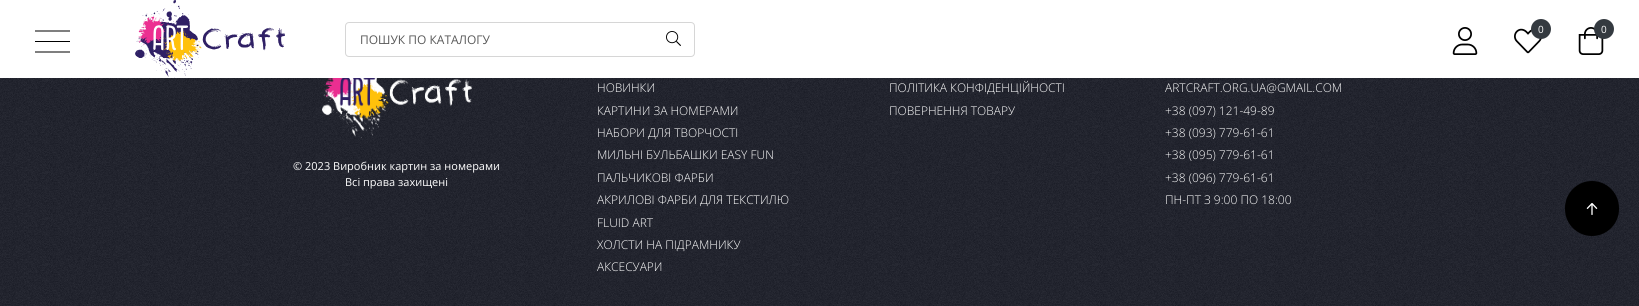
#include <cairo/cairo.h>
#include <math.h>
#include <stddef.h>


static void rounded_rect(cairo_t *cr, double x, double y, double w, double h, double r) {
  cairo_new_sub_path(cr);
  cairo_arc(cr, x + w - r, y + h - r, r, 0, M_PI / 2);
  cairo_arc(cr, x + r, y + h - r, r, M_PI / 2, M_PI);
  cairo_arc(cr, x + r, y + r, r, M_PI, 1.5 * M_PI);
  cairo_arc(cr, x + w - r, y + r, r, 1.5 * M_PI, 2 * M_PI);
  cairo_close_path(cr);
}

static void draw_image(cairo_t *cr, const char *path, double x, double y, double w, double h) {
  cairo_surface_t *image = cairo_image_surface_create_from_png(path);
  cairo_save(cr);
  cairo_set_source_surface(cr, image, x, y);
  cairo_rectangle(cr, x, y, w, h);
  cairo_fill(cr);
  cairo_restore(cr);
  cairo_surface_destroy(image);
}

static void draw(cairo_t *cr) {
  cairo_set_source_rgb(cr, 1, 1, 1);
  cairo_paint(cr);
  cairo_set_source_rgb(cr, 0, 0, 0);
  cairo_new_path(cr);
  cairo_move_to(cr, 35, 30.5);
  cairo_line_to(cr, 35, 31.5);
  cairo_line_to(cr, 70, 31.5);
  cairo_line_to(cr, 70, 30.5);
  cairo_close_path(cr);
  cairo_move_to(cr, 35, 41);
  cairo_line_to(cr, 35, 42);
  cairo_line_to(cr, 70, 42);
  cairo_line_to(cr, 70, 41);
  cairo_close_path(cr);
  cairo_move_to(cr, 35, 51.5);
  cairo_line_to(cr, 35, 52.5);
  cairo_line_to(cr, 70, 52.5);
  cairo_line_to(cr, 70, 51.5);
  cairo_close_path(cr);
  cairo_fill(cr);
  draw_image(cr, "images/1.png", 135, 0, 150, 78);
  rounded_rect(cr, 345.5, 22.5, 349, 34, 3.5);
  cairo_set_source_rgb(cr, 214 / 255.0, 214 / 255.0, 214 / 255.0);
  cairo_set_line_width(cr, 1);
  cairo_stroke(cr);
  draw_image(cr, "images/2.png", 666, 31, 15, 15);
  draw_image(cr, "images/3.png", 1452, 27, 26, 28);
  draw_image(cr, "images/4.png", 1514, 28, 28, 26);
  cairo_set_source_rgb(cr, 52 / 255.0, 58 / 255.0, 64 / 255.0);
  cairo_arc(cr, 1541, 29, 10, 0, 2 * M_PI);
  cairo_fill(cr);
  draw_image(cr, "images/5.png", 1578, 27, 26, 28);
  cairo_arc(cr, 1604, 29, 10, 0, 2 * M_PI);
  cairo_fill(cr);
  draw_image(cr, "images/6.png", 0, 78, 1639, 228);
  draw_image(cr, "images/7.png", 322, 78, 150, 60);
  cairo_set_source_rgb(cr, 0, 0, 0);
  rounded_rect(cr, 1565, 181, 54, 55, 27);
  cairo_fill(cr);
  draw_image(cr, "images/8.png", 1586, 203, 12, 12);
  cairo_select_font_face(cr, "Open Sans", CAIRO_FONT_SLANT_NORMAL, CAIRO_FONT_WEIGHT_NORMAL);
  cairo_set_font_size(cr, 12);
  cairo_set_source_rgb(cr, 89 / 255.0, 89 / 255.0, 89 / 255.0);
  cairo_move_to(cr, 360, 44);
  cairo_show_text(cr, "ПОШУК ПО КАТАЛОГУ");
  cairo_set_font_size(cr, 10);
  cairo_set_source_rgb(cr, 1, 1, 1);
  cairo_move_to(cr, 1538, 33);
  cairo_show_text(cr, "0");
  cairo_move_to(cr, 1601, 33);
  cairo_show_text(cr, "0");
  cairo_set_font_size(cr, 11);
  cairo_move_to(cr, 293, 170);
  cairo_show_text(cr, "© 2023 Виробник картин за номерами");
  cairo_move_to(cr, 345, 186);
  cairo_show_text(cr, "Всі права захищені");
  cairo_select_font_face(cr, "Open Sans Light", CAIRO_FONT_SLANT_NORMAL, CAIRO_FONT_WEIGHT_NORMAL);
  cairo_set_font_size(cr, 12);
  cairo_move_to(cr, 597, 92);
  cairo_show_text(cr, "НОВИНКИ");
  cairo_move_to(cr, 597, 115);
  cairo_show_text(cr, "КАРТИНИ ЗА НОМЕРАМИ");
  cairo_move_to(cr, 597, 137);
  cairo_show_text(cr, "НАБОРИ ДЛЯ ТВОРЧОСТІ");
  cairo_move_to(cr, 597, 159);
  cairo_show_text(cr, "МИЛЬНІ БУЛЬБАШКИ EASY FUN");
  cairo_move_to(cr, 597, 182);
  cairo_show_text(cr, "ПАЛЬЧИКОВІ ФАРБИ");
  cairo_move_to(cr, 597, 204);
  cairo_show_text(cr, "АКРИЛОВІ ФАРБИ ДЛЯ ТЕКСТИЛЮ");
  cairo_move_to(cr, 597, 227);
  cairo_show_text(cr, "FLUID ART");
  cairo_move_to(cr, 597, 249);
  cairo_show_text(cr, "ХОЛСТИ НА ПІДРАМНИКУ");
  cairo_move_to(cr, 597, 271);
  cairo_show_text(cr, "АКСЕСУАРИ");
  cairo_move_to(cr, 889, 92);
  cairo_show_text(cr, "ПОЛІТИКА КОНФІДЕНЦІЙНОСТІ");
  cairo_move_to(cr, 889, 115);
  cairo_show_text(cr, "ПОВЕРНЕННЯ ТОВАРУ");
  cairo_move_to(cr, 1165, 92);
  cairo_show_text(cr, "ARTCRAFT.ORG.UA@GMAIL.COM");
  cairo_move_to(cr, 1165, 115);
  cairo_show_text(cr, "+38 (097) 121-49-89");
  cairo_move_to(cr, 1165, 137);
  cairo_show_text(cr, "+38 (093) 779-61-61");
  cairo_move_to(cr, 1165, 159);
  cairo_show_text(cr, "+38 (095) 779-61-61");
  cairo_move_to(cr, 1165, 182);
  cairo_show_text(cr, "+38 (096) 779-61-61");
  cairo_move_to(cr, 1165, 204);
  cairo_show_text(cr, "ПН-ПТ З 9:00 ПО 18:00");
}

int main(void) {
  cairo_surface_t *surface = cairo_image_surface_create(CAIRO_FORMAT_RGB24, 1639, 306);
  cairo_t *cr = cairo_create(surface);
  cairo_font_options_t *options = cairo_font_options_create();
  cairo_font_options_set_hint_metrics(options, CAIRO_HINT_METRICS_OFF);
  cairo_font_options_set_hint_style(options, CAIRO_HINT_STYLE_NONE);
  cairo_set_font_options(cr, options);
  cairo_set_miter_limit(cr, 4);
  draw(cr);
  cairo_surface_write_to_png(surface, "out.png");
  cairo_font_options_destroy(options);
  cairo_destroy(cr);
  cairo_surface_destroy(surface);
  return 0;
}
